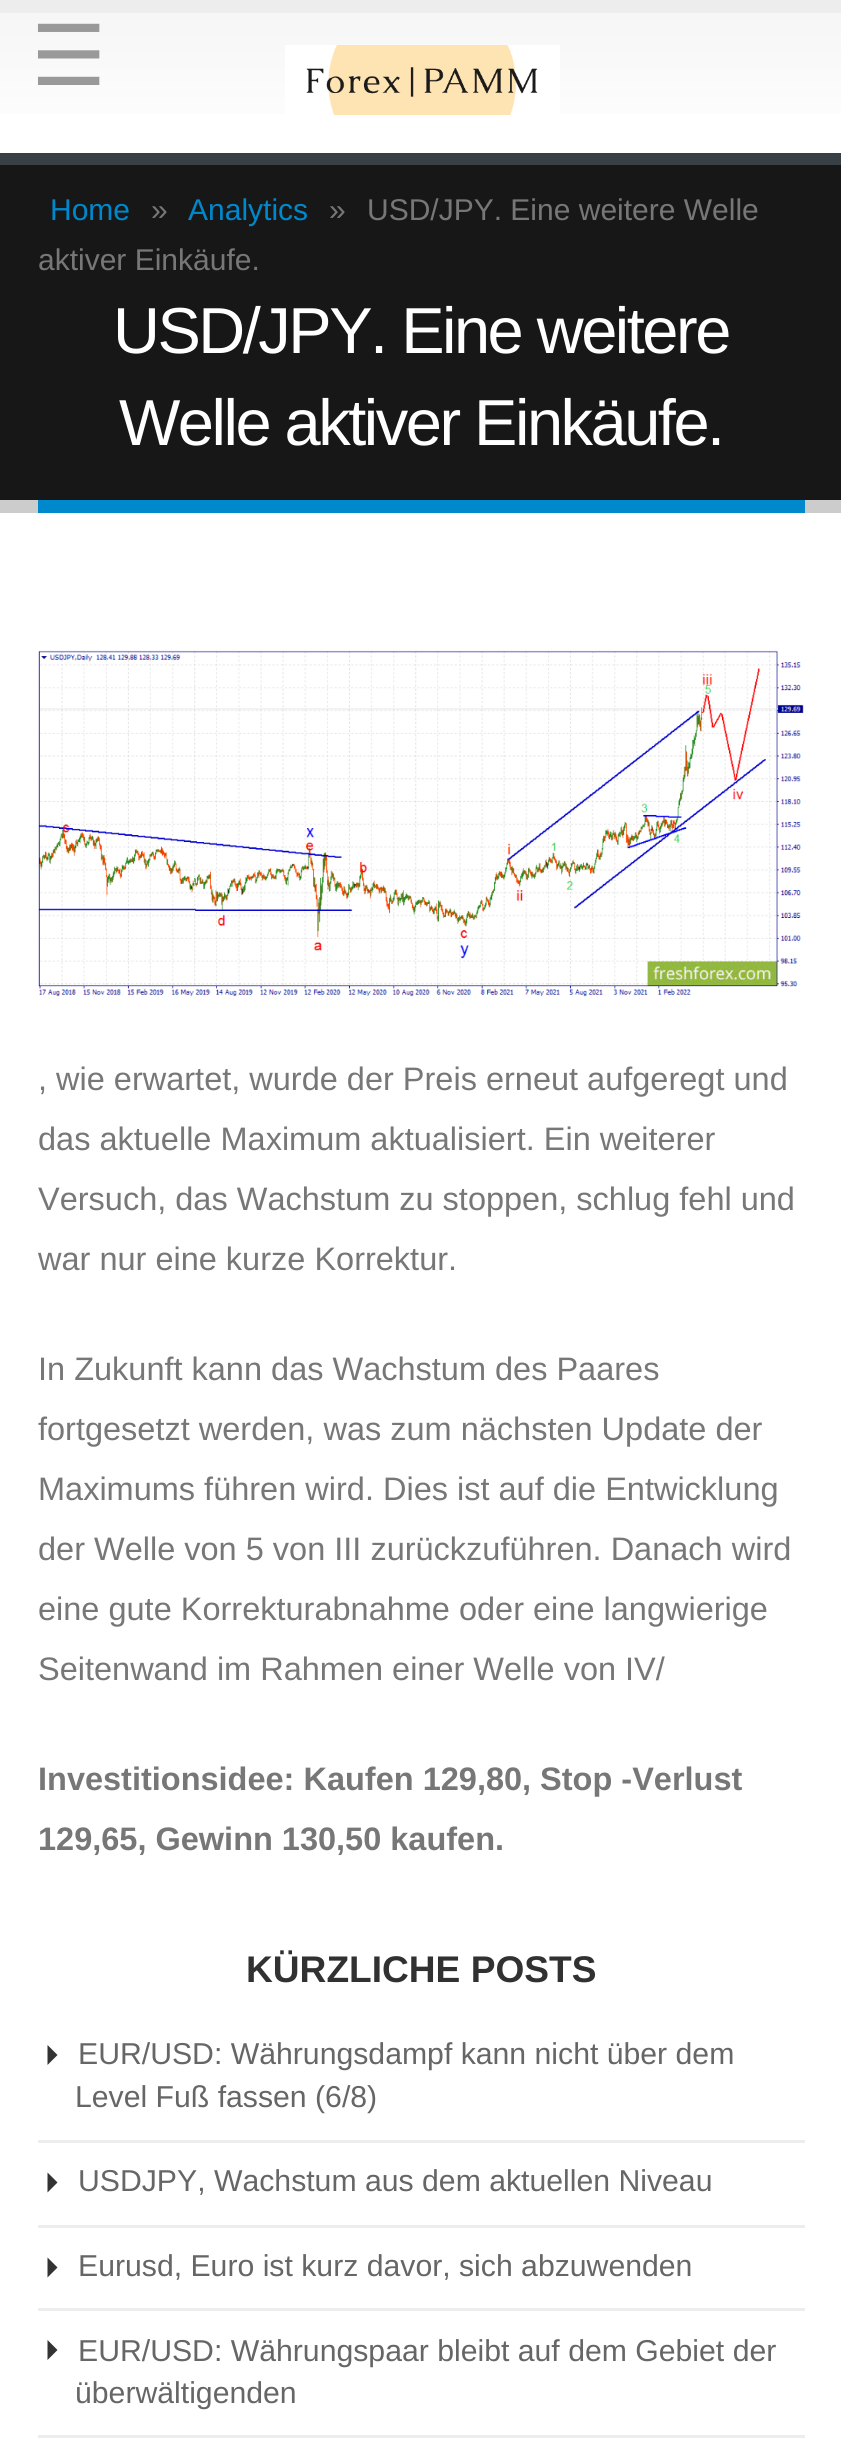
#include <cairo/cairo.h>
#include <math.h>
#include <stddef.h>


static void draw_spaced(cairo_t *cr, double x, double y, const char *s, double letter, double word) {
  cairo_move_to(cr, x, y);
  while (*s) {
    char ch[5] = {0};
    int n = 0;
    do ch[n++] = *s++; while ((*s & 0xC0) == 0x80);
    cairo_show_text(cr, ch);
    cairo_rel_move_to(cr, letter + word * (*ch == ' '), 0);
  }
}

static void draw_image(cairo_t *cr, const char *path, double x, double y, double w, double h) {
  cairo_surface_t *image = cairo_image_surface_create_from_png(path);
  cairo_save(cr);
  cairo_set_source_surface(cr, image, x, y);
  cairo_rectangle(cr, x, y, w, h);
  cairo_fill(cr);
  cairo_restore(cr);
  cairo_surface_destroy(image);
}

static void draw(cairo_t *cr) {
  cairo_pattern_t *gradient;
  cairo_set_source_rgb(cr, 1, 1, 1);
  cairo_paint(cr);
  cairo_set_source_rgb(cr, 237 / 255.0, 237 / 255.0, 237 / 255.0);
  cairo_rectangle(cr, 0, 0, 841, 13);
  cairo_fill(cr);
  gradient = cairo_pattern_create_linear(421, 12, 421, 153);
  cairo_pattern_add_color_stop_rgba(gradient, 0, 246 / 255.0, 246 / 255.0, 246 / 255.0, 1);
  cairo_pattern_add_color_stop_rgba(gradient, 1, 1, 1, 1, 1);
  cairo_set_source(cr, gradient);
  cairo_pattern_destroy(gradient);
  cairo_rectangle(cr, 0, 13, 841, 101);
  cairo_fill(cr);
  draw_image(cr, "images/1.png", 285, 45, 275, 70);
  cairo_set_source_rgb(cr, 23 / 255.0, 23 / 255.0, 23 / 255.0);
  cairo_rectangle(cr, 0, 165, 841, 335);
  cairo_fill(cr);
  cairo_set_source_rgb(cr, 56 / 255.0, 64 / 255.0, 69 / 255.0);
  cairo_rectangle(cr, 0, 153, 841, 12);
  cairo_fill(cr);
  cairo_set_source_rgb(cr, 204 / 255.0, 204 / 255.0, 204 / 255.0);
  cairo_rectangle(cr, 0, 500, 841, 13);
  cairo_fill(cr);
  cairo_set_source_rgb(cr, 0, 136 / 255.0, 204 / 255.0);
  cairo_rectangle(cr, 38, 500, 767, 13);
  cairo_fill(cr);
  draw_image(cr, "images/2.png", 38, 650, 766, 347);
  cairo_set_source_rgb(cr, 51 / 255.0, 51 / 255.0, 51 / 255.0);
  cairo_new_path(cr);
  cairo_move_to(cr, 47.5, 2065);
  cairo_line_to(cr, 47.5, 2045);
  cairo_line_to(cr, 57.5, 2055);
  cairo_close_path(cr);
  cairo_fill(cr);
  cairo_set_source_rgb(cr, 237 / 255.0, 237 / 255.0, 237 / 255.0);
  cairo_rectangle(cr, 38, 2140, 767, 3);
  cairo_fill(cr);
  cairo_set_source_rgb(cr, 51 / 255.0, 51 / 255.0, 51 / 255.0);
  cairo_new_path(cr);
  cairo_move_to(cr, 47.5, 2192.5);
  cairo_line_to(cr, 47.5, 2172.5);
  cairo_line_to(cr, 57.5, 2182.5);
  cairo_close_path(cr);
  cairo_fill(cr);
  cairo_set_source_rgb(cr, 237 / 255.0, 237 / 255.0, 237 / 255.0);
  cairo_rectangle(cr, 38, 2225, 767, 3);
  cairo_fill(cr);
  cairo_set_source_rgb(cr, 51 / 255.0, 51 / 255.0, 51 / 255.0);
  cairo_new_path(cr);
  cairo_move_to(cr, 47.5, 2277.5);
  cairo_line_to(cr, 47.5, 2257.5);
  cairo_line_to(cr, 57.5, 2267.5);
  cairo_close_path(cr);
  cairo_fill(cr);
  cairo_set_source_rgb(cr, 237 / 255.0, 237 / 255.0, 237 / 255.0);
  cairo_rectangle(cr, 38, 2308, 767, 3);
  cairo_fill(cr);
  cairo_set_source_rgb(cr, 51 / 255.0, 51 / 255.0, 51 / 255.0);
  cairo_new_path(cr);
  cairo_move_to(cr, 47.5, 2360);
  cairo_line_to(cr, 47.5, 2340);
  cairo_line_to(cr, 57.5, 2350);
  cairo_close_path(cr);
  cairo_fill(cr);
  cairo_set_source_rgb(cr, 237 / 255.0, 237 / 255.0, 237 / 255.0);
  cairo_rectangle(cr, 38, 2435, 767, 3);
  cairo_fill(cr);
  cairo_select_font_face(cr, "DejaVu Sans", CAIRO_FONT_SLANT_NORMAL, CAIRO_FONT_WEIGHT_NORMAL);
  cairo_set_font_size(cr, 84);
  cairo_set_source_rgb(cr, 153 / 255.0, 153 / 255.0, 153 / 255.0);
  cairo_move_to(cr, 31, 85);
  cairo_show_text(cr, "☰");
  cairo_select_font_face(cr, "Liberation Sans", CAIRO_FONT_SLANT_NORMAL, CAIRO_FONT_WEIGHT_NORMAL);
  cairo_set_font_size(cr, 30);
  cairo_set_source_rgb(cr, 0, 136 / 255.0, 204 / 255.0);
  cairo_move_to(cr, 50, 220);
  cairo_show_text(cr, "Home");
  cairo_set_source_rgb(cr, 119 / 255.0, 119 / 255.0, 119 / 255.0);
  cairo_move_to(cr, 151, 220);
  cairo_show_text(cr, "»");
  cairo_set_source_rgb(cr, 0, 136 / 255.0, 204 / 255.0);
  cairo_move_to(cr, 188, 220);
  cairo_show_text(cr, "Analytics");
  cairo_set_source_rgb(cr, 119 / 255.0, 119 / 255.0, 119 / 255.0);
  cairo_move_to(cr, 329, 220);
  cairo_show_text(cr, "»");
  cairo_move_to(cr, 367, 220);
  cairo_show_text(cr, "USD/JPY. Eine weitere Welle");
  cairo_move_to(cr, 38, 270);
  cairo_show_text(cr, "aktiver Einkäufe.");
  cairo_set_font_size(cr, 65);
  cairo_set_source_rgb(cr, 1, 1, 1);
  draw_spaced(cr, 113, 353, "USD/JPY. Eine weitere", -2.5, 0);
  draw_spaced(cr, 119, 445, "Welle aktiver Einkäufe.", -2.5, 0);
  cairo_set_font_size(cr, 32.5);
  cairo_set_source_rgb(cr, 119 / 255.0, 119 / 255.0, 119 / 255.0);
  cairo_move_to(cr, 38, 1090);
  cairo_show_text(cr, ", wie erwartet, wurde der Preis erneut aufgeregt und");
  cairo_move_to(cr, 38, 1150);
  cairo_show_text(cr, "das aktuelle Maximum aktualisiert. Ein weiterer");
  cairo_move_to(cr, 38, 1210);
  cairo_show_text(cr, "Versuch, das Wachstum zu stoppen, schlug fehl und");
  cairo_move_to(cr, 38, 1270);
  cairo_show_text(cr, "war nur eine kurze Korrektur.");
  cairo_move_to(cr, 38, 1380);
  cairo_show_text(cr, "In Zukunft kann das Wachstum des Paares");
  cairo_move_to(cr, 38, 1440);
  cairo_show_text(cr, "fortgesetzt werden, was zum nächsten Update der");
  cairo_move_to(cr, 38, 1500);
  cairo_show_text(cr, "Maximums führen wird. Dies ist auf die Entwicklung");
  cairo_move_to(cr, 38, 1560);
  cairo_show_text(cr, "der Welle von 5 von III zurückzuführen. Danach wird");
  cairo_move_to(cr, 38, 1620);
  cairo_show_text(cr, "eine gute Korrekturabnahme oder eine langwierige");
  cairo_move_to(cr, 38, 1680);
  cairo_show_text(cr, "Seitenwand im Rahmen einer Welle von IV/");
  cairo_select_font_face(cr, "Liberation Sans", CAIRO_FONT_SLANT_NORMAL, CAIRO_FONT_WEIGHT_BOLD);
  cairo_move_to(cr, 38, 1790);
  cairo_show_text(cr, "Investitionsidee: Kaufen 129,80, Stop -Verlust");
  cairo_move_to(cr, 38, 1850);
  cairo_show_text(cr, "129,65, Gewinn 130,50 kaufen.");
  cairo_set_font_size(cr, 37.1);
  cairo_set_source_rgb(cr, 49 / 255.0, 49 / 255.0, 49 / 255.0);
  cairo_move_to(cr, 246, 1982);
  cairo_show_text(cr, "KÜRZLICHE POSTS");
  cairo_select_font_face(cr, "Liberation Sans", CAIRO_FONT_SLANT_NORMAL, CAIRO_FONT_WEIGHT_NORMAL);
  cairo_set_font_size(cr, 30.2);
  cairo_set_source_rgb(cr, 102 / 255.0, 102 / 255.0, 102 / 255.0);
  cairo_move_to(cr, 78, 2064);
  cairo_show_text(cr, "EUR/USD: Währungsdampf kann nicht über dem");
  cairo_move_to(cr, 75, 2107);
  cairo_show_text(cr, "Level Fuß fassen (6/8)");
  cairo_move_to(cr, 78, 2191);
  cairo_show_text(cr, "USDJPY, Wachstum aus dem aktuellen Niveau");
  cairo_move_to(cr, 78, 2276);
  cairo_show_text(cr, "Eurusd, Euro ist kurz davor, sich abzuwenden");
  cairo_move_to(cr, 78, 2361);
  cairo_show_text(cr, "EUR/USD: Währungspaar bleibt auf dem Gebiet der");
  cairo_move_to(cr, 75, 2403);
  cairo_show_text(cr, "überwältigenden");
}

int main(void) {
  cairo_surface_t *surface = cairo_image_surface_create(CAIRO_FORMAT_RGB24, 841, 2460);
  cairo_t *cr = cairo_create(surface);
  cairo_font_options_t *options = cairo_font_options_create();
  cairo_font_options_set_hint_metrics(options, CAIRO_HINT_METRICS_OFF);
  cairo_font_options_set_hint_style(options, CAIRO_HINT_STYLE_NONE);
  cairo_set_font_options(cr, options);
  cairo_set_miter_limit(cr, 4);
  draw(cr);
  cairo_surface_write_to_png(surface, "out.png");
  cairo_font_options_destroy(options);
  cairo_destroy(cr);
  cairo_surface_destroy(surface);
  return 0;
}
